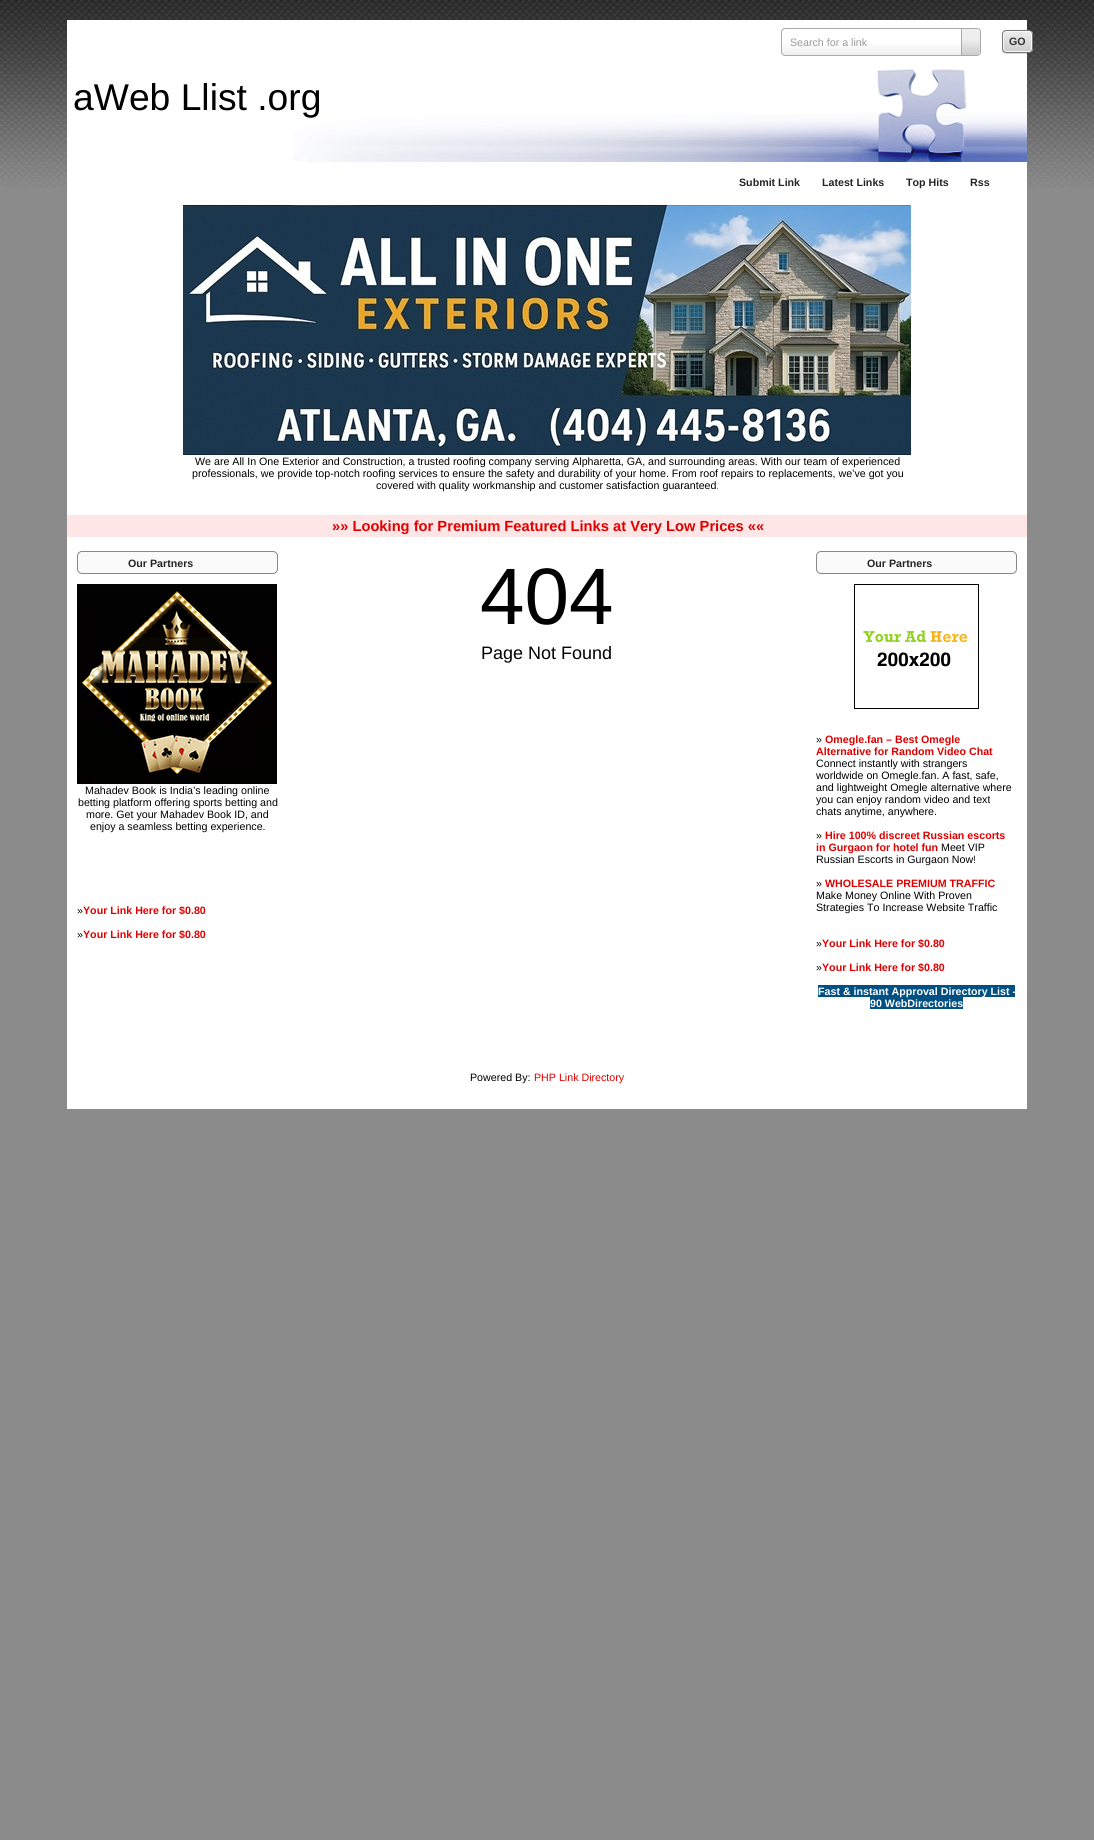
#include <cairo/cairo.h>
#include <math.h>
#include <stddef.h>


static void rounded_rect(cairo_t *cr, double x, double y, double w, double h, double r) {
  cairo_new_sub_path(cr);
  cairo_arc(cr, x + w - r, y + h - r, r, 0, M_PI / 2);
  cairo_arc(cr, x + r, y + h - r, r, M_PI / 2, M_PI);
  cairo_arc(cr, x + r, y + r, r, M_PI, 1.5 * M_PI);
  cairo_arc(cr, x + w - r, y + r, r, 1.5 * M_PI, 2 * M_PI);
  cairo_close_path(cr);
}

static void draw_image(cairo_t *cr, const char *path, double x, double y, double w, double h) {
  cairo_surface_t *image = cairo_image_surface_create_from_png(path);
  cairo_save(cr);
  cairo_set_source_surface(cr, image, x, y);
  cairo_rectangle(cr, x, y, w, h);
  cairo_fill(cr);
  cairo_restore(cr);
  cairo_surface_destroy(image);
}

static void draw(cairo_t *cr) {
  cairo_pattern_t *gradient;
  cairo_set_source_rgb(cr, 139 / 255.0, 139 / 255.0, 139 / 255.0);
  cairo_paint(cr);
  draw_image(cr, "images/1.png", 0, 0, 1094, 188);
  cairo_set_source_rgb(cr, 1, 1, 1);
  cairo_rectangle(cr, 67, 20, 960, 1089);
  cairo_fill(cr);
  gradient = cairo_pattern_create_linear(782, 55, 782, 29);
  cairo_pattern_add_color_stop_rgba(gradient, 0, 238 / 255.0, 238 / 255.0, 238 / 255.0, 1);
  cairo_pattern_add_color_stop_rgba(gradient, 0.5, 1, 1, 1, 1);
  cairo_set_source(cr, gradient);
  cairo_pattern_destroy(gradient);
  rounded_rect(cr, 782, 29, 198, 26, 3);
  cairo_fill(cr);
  rounded_rect(cr, 781.5, 28.5, 199, 27, 3.5);
  cairo_set_source_rgb(cr, 170 / 255.0, 170 / 255.0, 170 / 255.0);
  cairo_set_line_width(cr, 1);
  cairo_stroke(cr);
  cairo_save(cr);
  rounded_rect(cr, 782, 29, 198, 26, 3);
  cairo_clip(cr);
  gradient = cairo_pattern_create_linear(962, 55, 962, 29);
  cairo_pattern_add_color_stop_rgba(gradient, 0, 204 / 255.0, 204 / 255.0, 204 / 255.0, 1);
  cairo_pattern_add_color_stop_rgba(gradient, 0.6, 238 / 255.0, 238 / 255.0, 238 / 255.0, 1);
  cairo_set_source(cr, gradient);
  cairo_pattern_destroy(gradient);
  cairo_new_path(cr);
  cairo_move_to(cr, 961, 29);
  cairo_line_to(cr, 976, 29);
  cairo_curve_to(cr, 978, 29, 980, 31, 980, 33);
  cairo_line_to(cr, 980, 51);
  cairo_curve_to(cr, 980, 53, 978, 55, 976, 55);
  cairo_line_to(cr, 961, 55);
  cairo_close_path(cr);
  cairo_fill(cr);
  cairo_restore(cr);
  cairo_rectangle(cr, 961, 29, 1, 26);
  cairo_fill(cr);
  cairo_set_source_rgba(cr, 0, 0, 0, 0.15);
  cairo_new_path(cr);
  cairo_move_to(cr, 1002, 48.5);
  cairo_curve_to(cr, 1002, 54.5, 1005, 54, 1010, 54);
  cairo_line_to(cr, 1025, 54);
  cairo_curve_to(cr, 1030, 54, 1033, 54.5, 1033, 48.5);
  cairo_curve_to(cr, 1033, 51, 1031, 53, 1028.5, 53);
  cairo_line_to(cr, 1006.5, 53);
  cairo_curve_to(cr, 1004, 53, 1002, 51, 1002, 48.5);
  cairo_close_path(cr);
  cairo_fill(cr);
  cairo_save(cr);
  rounded_rect(cr, 1002, 30, 31, 23, 4);
  cairo_clip(cr);
  gradient = cairo_pattern_create_linear(1018, 31, 1018, 52);
  cairo_pattern_add_color_stop_rgba(gradient, 0, 238 / 255.0, 238 / 255.0, 238 / 255.0, 1);
  cairo_pattern_add_color_stop_rgba(gradient, 1, 204 / 255.0, 204 / 255.0, 204 / 255.0, 1);
  cairo_set_source(cr, gradient);
  cairo_pattern_destroy(gradient);
  cairo_rectangle(cr, 1002, 31, 31, 21);
  cairo_fill(cr);
  cairo_restore(cr);
  rounded_rect(cr, 1003.5, 31.5, 28, 20, 2.5);
  cairo_set_source_rgba(cr, 1, 1, 1, 0.8);
  cairo_stroke(cr);
  rounded_rect(cr, 1002.5, 30.5, 30, 22, 3.5);
  cairo_set_source_rgb(cr, 119 / 255.0, 119 / 255.0, 119 / 255.0);
  cairo_stroke(cr);
  draw_image(cr, "images/2.png", 293, 69, 734, 93);
  draw_image(cr, "images/3.png", 183, 205, 728, 250);
  cairo_set_source_rgb(cr, 1, 230 / 255.0, 230 / 255.0);
  cairo_rectangle(cr, 67, 515, 960, 22);
  cairo_fill(cr);
  cairo_set_source_rgb(cr, 250 / 255.0, 250 / 255.0, 250 / 255.0);
  rounded_rect(cr, 77.5, 551.5, 200, 22, 4.5);
  cairo_fill_preserve(cr);
  cairo_set_source_rgb(cr, 136 / 255.0, 136 / 255.0, 136 / 255.0);
  cairo_stroke(cr);
  draw_image(cr, "images/4.png", 77, 584, 200, 200);
  cairo_set_source_rgb(cr, 250 / 255.0, 250 / 255.0, 250 / 255.0);
  rounded_rect(cr, 816.5, 551.5, 200, 22, 4.5);
  cairo_fill_preserve(cr);
  cairo_set_source_rgb(cr, 136 / 255.0, 136 / 255.0, 136 / 255.0);
  cairo_stroke(cr);
  draw_image(cr, "images/5.png", 854, 584, 125, 125);
  cairo_set_source_rgb(cr, 0, 80 / 255.0, 131 / 255.0);
  cairo_rectangle(cr, 818, 985, 197, 12);
  cairo_fill(cr);
  cairo_rectangle(cr, 870, 997, 93, 12);
  cairo_fill(cr);
  cairo_select_font_face(cr, "Liberation Sans", CAIRO_FONT_SLANT_NORMAL, CAIRO_FONT_WEIGHT_NORMAL);
  cairo_set_font_size(cr, 10.67);
  cairo_set_source_rgb(cr, 153 / 255.0, 153 / 255.0, 153 / 255.0);
  cairo_move_to(cr, 790, 46);
  cairo_show_text(cr, "Search for a link");
  cairo_select_font_face(cr, "Liberation Sans", CAIRO_FONT_SLANT_NORMAL, CAIRO_FONT_WEIGHT_BOLD);
  cairo_set_source_rgb(cr, 51 / 255.0, 51 / 255.0, 51 / 255.0);
  cairo_move_to(cr, 1009, 45);
  cairo_show_text(cr, "GO");
  cairo_select_font_face(cr, "Liberation Sans", CAIRO_FONT_SLANT_NORMAL, CAIRO_FONT_WEIGHT_NORMAL);
  cairo_set_font_size(cr, 37.25);
  cairo_set_source_rgb(cr, 0, 0, 0);
  cairo_move_to(cr, 73, 110);
  cairo_show_text(cr, "aWeb Llist .org");
  cairo_select_font_face(cr, "Liberation Sans", CAIRO_FONT_SLANT_NORMAL, CAIRO_FONT_WEIGHT_BOLD);
  cairo_set_font_size(cr, 10.67);
  cairo_set_source_rgb(cr, 36 / 255.0, 36 / 255.0, 36 / 255.0);
  cairo_move_to(cr, 739, 186);
  cairo_show_text(cr, "Submit Link");
  cairo_move_to(cr, 822, 186);
  cairo_show_text(cr, "Latest Links");
  cairo_move_to(cr, 906, 186);
  cairo_show_text(cr, "Top Hits");
  cairo_move_to(cr, 970, 186);
  cairo_show_text(cr, "Rss");
  cairo_select_font_face(cr, "Liberation Sans", CAIRO_FONT_SLANT_NORMAL, CAIRO_FONT_WEIGHT_NORMAL);
  cairo_set_source_rgb(cr, 0, 0, 0);
  cairo_move_to(cr, 195, 465);
  cairo_show_text(cr, "We are All In One Exterior and Construction, a trusted roofing company serving Alpharetta, GA, and surrounding areas. With our team of experienced");
  cairo_move_to(cr, 192, 477);
  cairo_show_text(cr, "professionals, we provide top-notch roofing services to ensure the safety and durability of your home. From roof repairs to replacements, we’ve got you");
  cairo_move_to(cr, 376, 489);
  cairo_show_text(cr, "covered with quality workmanship and customer satisfaction guaranteed.");
  cairo_select_font_face(cr, "Liberation Sans", CAIRO_FONT_SLANT_NORMAL, CAIRO_FONT_WEIGHT_BOLD);
  cairo_set_font_size(cr, 14.7);
  cairo_set_source_rgb(cr, 224 / 255.0, 0, 0);
  cairo_move_to(cr, 332, 531);
  cairo_show_text(cr, "»» Looking for Premium Featured Links at Very Low Prices ««");
  cairo_set_font_size(cr, 10.67);
  cairo_set_source_rgb(cr, 36 / 255.0, 36 / 255.0, 36 / 255.0);
  cairo_move_to(cr, 128, 567);
  cairo_show_text(cr, "Our Partners");
  cairo_select_font_face(cr, "Liberation Sans", CAIRO_FONT_SLANT_NORMAL, CAIRO_FONT_WEIGHT_NORMAL);
  cairo_set_source_rgb(cr, 0, 0, 0);
  cairo_move_to(cr, 85, 794);
  cairo_show_text(cr, "Mahadev Book is India’s leading online");
  cairo_move_to(cr, 78, 806);
  cairo_show_text(cr, "betting platform offering sports betting and");
  cairo_move_to(cr, 86, 818);
  cairo_show_text(cr, "more. Get your Mahadev Book ID, and");
  cairo_move_to(cr, 90, 830);
  cairo_show_text(cr, "enjoy a seamless betting experience.");
  cairo_move_to(cr, 77, 914);
  cairo_show_text(cr, "»");
  cairo_select_font_face(cr, "Liberation Sans", CAIRO_FONT_SLANT_NORMAL, CAIRO_FONT_WEIGHT_BOLD);
  cairo_set_source_rgb(cr, 224 / 255.0, 0, 0);
  cairo_move_to(cr, 83, 914);
  cairo_show_text(cr, "Your Link Here for $0.80");
  cairo_select_font_face(cr, "Liberation Sans", CAIRO_FONT_SLANT_NORMAL, CAIRO_FONT_WEIGHT_NORMAL);
  cairo_set_source_rgb(cr, 0, 0, 0);
  cairo_move_to(cr, 77, 938);
  cairo_show_text(cr, "»");
  cairo_select_font_face(cr, "Liberation Sans", CAIRO_FONT_SLANT_NORMAL, CAIRO_FONT_WEIGHT_BOLD);
  cairo_set_source_rgb(cr, 224 / 255.0, 0, 0);
  cairo_move_to(cr, 83, 938);
  cairo_show_text(cr, "Your Link Here for $0.80");
  cairo_select_font_face(cr, "Liberation Sans", CAIRO_FONT_SLANT_NORMAL, CAIRO_FONT_WEIGHT_NORMAL);
  cairo_set_font_size(cr, 80);
  cairo_set_source_rgb(cr, 0, 0, 0);
  cairo_move_to(cr, 480, 624);
  cairo_show_text(cr, "404");
  cairo_set_font_size(cr, 18);
  cairo_move_to(cr, 481, 659);
  cairo_show_text(cr, "Page Not Found");
  cairo_select_font_face(cr, "Liberation Sans", CAIRO_FONT_SLANT_NORMAL, CAIRO_FONT_WEIGHT_BOLD);
  cairo_set_font_size(cr, 10.67);
  cairo_set_source_rgb(cr, 36 / 255.0, 36 / 255.0, 36 / 255.0);
  cairo_move_to(cr, 867, 567);
  cairo_show_text(cr, "Our Partners");
  cairo_select_font_face(cr, "Liberation Sans", CAIRO_FONT_SLANT_NORMAL, CAIRO_FONT_WEIGHT_NORMAL);
  cairo_set_source_rgb(cr, 0, 0, 0);
  cairo_move_to(cr, 816, 743);
  cairo_show_text(cr, "»");
  cairo_select_font_face(cr, "Liberation Sans", CAIRO_FONT_SLANT_NORMAL, CAIRO_FONT_WEIGHT_BOLD);
  cairo_set_source_rgb(cr, 224 / 255.0, 0, 0);
  cairo_move_to(cr, 825, 743);
  cairo_show_text(cr, "Omegle.fan – Best Omegle");
  cairo_move_to(cr, 816, 755);
  cairo_show_text(cr, "Alternative for Random Video Chat");
  cairo_select_font_face(cr, "Liberation Sans", CAIRO_FONT_SLANT_NORMAL, CAIRO_FONT_WEIGHT_NORMAL);
  cairo_set_source_rgb(cr, 0, 0, 0);
  cairo_move_to(cr, 816, 767);
  cairo_show_text(cr, "Connect instantly with strangers");
  cairo_move_to(cr, 816, 779);
  cairo_show_text(cr, "worldwide on Omegle.fan. A fast, safe,");
  cairo_move_to(cr, 816, 791);
  cairo_show_text(cr, "and lightweight Omegle alternative where");
  cairo_move_to(cr, 816, 803);
  cairo_show_text(cr, "you can enjoy random video and text");
  cairo_move_to(cr, 816, 815);
  cairo_show_text(cr, "chats anytime, anywhere.");
  cairo_move_to(cr, 816, 839);
  cairo_show_text(cr, "»");
  cairo_select_font_face(cr, "Liberation Sans", CAIRO_FONT_SLANT_NORMAL, CAIRO_FONT_WEIGHT_BOLD);
  cairo_set_source_rgb(cr, 224 / 255.0, 0, 0);
  cairo_move_to(cr, 825, 839);
  cairo_show_text(cr, "Hire 100% discreet Russian escorts");
  cairo_move_to(cr, 816, 851);
  cairo_show_text(cr, "in Gurgaon for hotel fun");
  cairo_select_font_face(cr, "Liberation Sans", CAIRO_FONT_SLANT_NORMAL, CAIRO_FONT_WEIGHT_NORMAL);
  cairo_set_source_rgb(cr, 0, 0, 0);
  cairo_move_to(cr, 941, 851);
  cairo_show_text(cr, "Meet VIP");
  cairo_move_to(cr, 816, 863);
  cairo_show_text(cr, "Russian Escorts in Gurgaon Now!");
  cairo_move_to(cr, 816, 887);
  cairo_show_text(cr, "»");
  cairo_select_font_face(cr, "Liberation Sans", CAIRO_FONT_SLANT_NORMAL, CAIRO_FONT_WEIGHT_BOLD);
  cairo_set_source_rgb(cr, 224 / 255.0, 0, 0);
  cairo_move_to(cr, 825, 887);
  cairo_show_text(cr, "WHOLESALE PREMIUM TRAFFIC");
  cairo_select_font_face(cr, "Liberation Sans", CAIRO_FONT_SLANT_NORMAL, CAIRO_FONT_WEIGHT_NORMAL);
  cairo_set_source_rgb(cr, 0, 0, 0);
  cairo_move_to(cr, 816, 899);
  cairo_show_text(cr, "Make Money Online With Proven");
  cairo_move_to(cr, 816, 911);
  cairo_show_text(cr, "Strategies To Increase Website Traffic");
  cairo_move_to(cr, 816, 947);
  cairo_show_text(cr, "»");
  cairo_select_font_face(cr, "Liberation Sans", CAIRO_FONT_SLANT_NORMAL, CAIRO_FONT_WEIGHT_BOLD);
  cairo_set_source_rgb(cr, 224 / 255.0, 0, 0);
  cairo_move_to(cr, 822, 947);
  cairo_show_text(cr, "Your Link Here for $0.80");
  cairo_select_font_face(cr, "Liberation Sans", CAIRO_FONT_SLANT_NORMAL, CAIRO_FONT_WEIGHT_NORMAL);
  cairo_set_source_rgb(cr, 0, 0, 0);
  cairo_move_to(cr, 816, 971);
  cairo_show_text(cr, "»");
  cairo_select_font_face(cr, "Liberation Sans", CAIRO_FONT_SLANT_NORMAL, CAIRO_FONT_WEIGHT_BOLD);
  cairo_set_source_rgb(cr, 224 / 255.0, 0, 0);
  cairo_move_to(cr, 822, 971);
  cairo_show_text(cr, "Your Link Here for $0.80");
  cairo_set_source_rgb(cr, 1, 1, 1);
  cairo_move_to(cr, 818, 995);
  cairo_show_text(cr, "Fast & instant Approval Directory List -");
  cairo_move_to(cr, 870, 1007);
  cairo_show_text(cr, "90 WebDirectories");
  cairo_select_font_face(cr, "Liberation Sans", CAIRO_FONT_SLANT_NORMAL, CAIRO_FONT_WEIGHT_NORMAL);
  cairo_set_source_rgb(cr, 0, 0, 0);
  cairo_move_to(cr, 470, 1081);
  cairo_show_text(cr, "Powered By:");
  cairo_set_source_rgb(cr, 224 / 255.0, 0, 0);
  cairo_move_to(cr, 534, 1081);
  cairo_show_text(cr, "PHP Link Directory");
}

int main(void) {
  cairo_surface_t *surface = cairo_image_surface_create(CAIRO_FORMAT_RGB24, 1094, 1840);
  cairo_t *cr = cairo_create(surface);
  cairo_font_options_t *options = cairo_font_options_create();
  cairo_font_options_set_hint_metrics(options, CAIRO_HINT_METRICS_OFF);
  cairo_font_options_set_hint_style(options, CAIRO_HINT_STYLE_NONE);
  cairo_set_font_options(cr, options);
  cairo_set_miter_limit(cr, 4);
  draw(cr);
  cairo_surface_write_to_png(surface, "out.png");
  cairo_font_options_destroy(options);
  cairo_destroy(cr);
  cairo_surface_destroy(surface);
  return 0;
}
